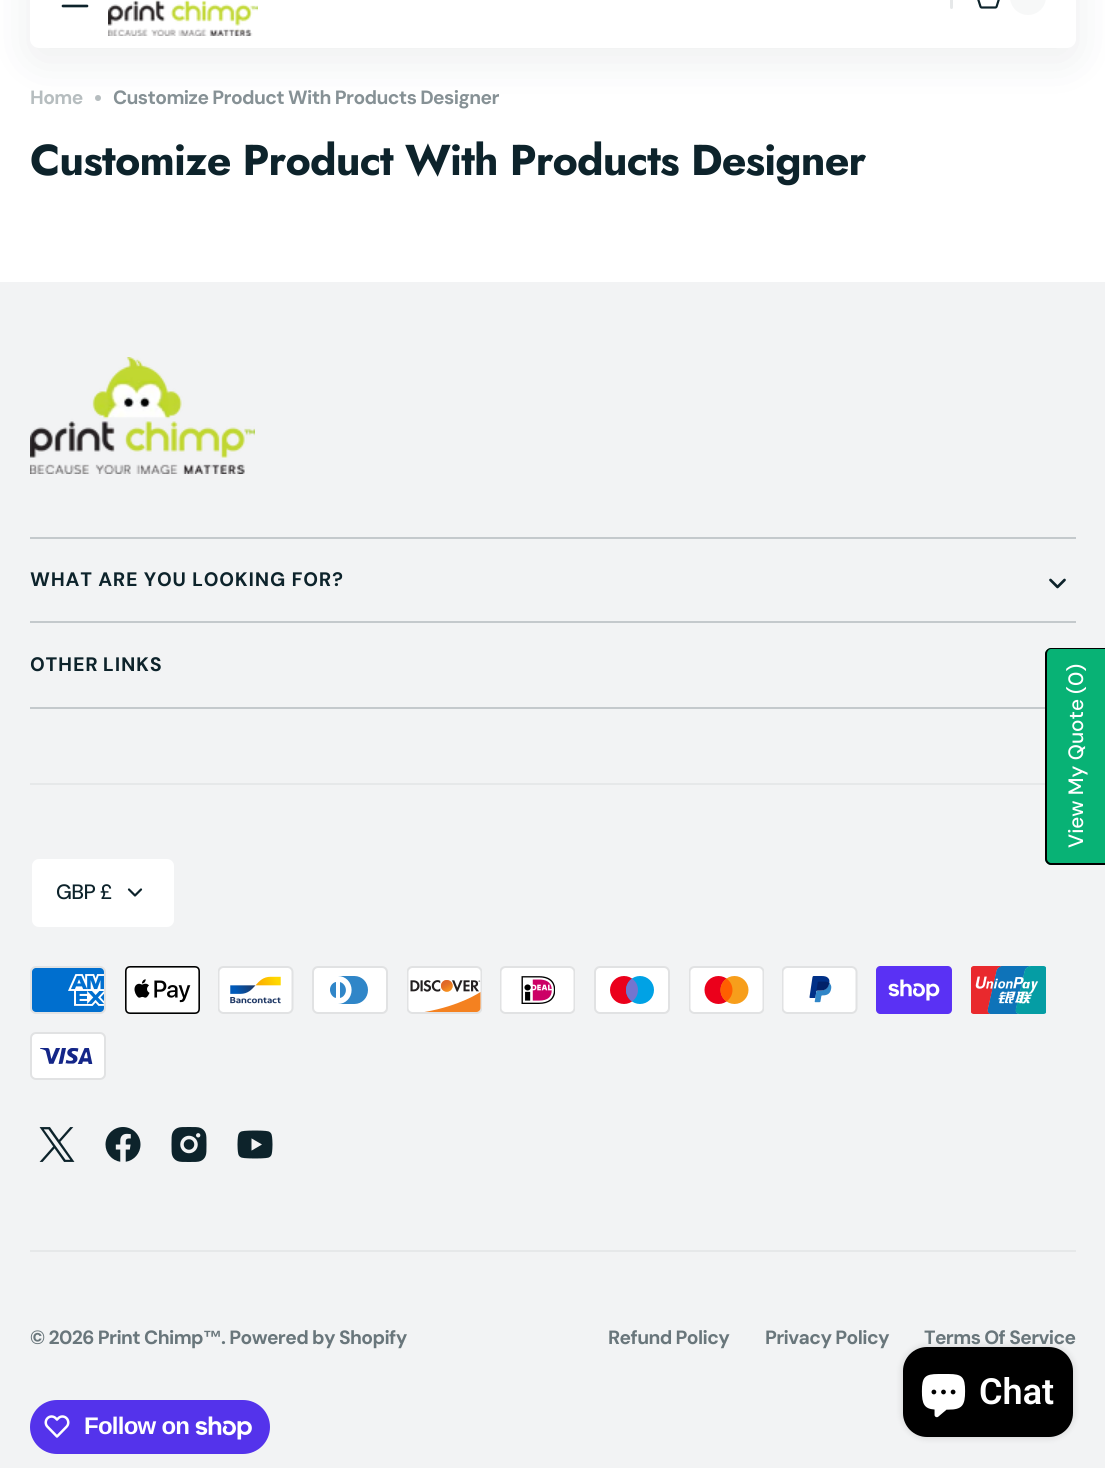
#include <cairo/cairo.h>
#include <math.h>
#include <stddef.h>


static void draw_spaced(cairo_t *cr, double x, double y, const char *s, double letter, double word) {
  cairo_move_to(cr, x, y);
  while (*s) {
    char ch[5] = {0};
    int n = 0;
    do ch[n++] = *s++; while ((*s & 0xC0) == 0x80);
    cairo_show_text(cr, ch);
    cairo_rel_move_to(cr, letter + word * (*ch == ' '), 0);
  }
}

static void rounded_rect(cairo_t *cr, double x, double y, double w, double h, double r) {
  cairo_new_sub_path(cr);
  cairo_arc(cr, x + w - r, y + h - r, r, 0, M_PI / 2);
  cairo_arc(cr, x + r, y + h - r, r, M_PI / 2, M_PI);
  cairo_arc(cr, x + r, y + r, r, M_PI, 1.5 * M_PI);
  cairo_arc(cr, x + w - r, y + r, r, 1.5 * M_PI, 2 * M_PI);
  cairo_close_path(cr);
}

static void draw_shadow(cairo_t *cr, double x, double y, double w, double h, double r, double blur, double alpha) {
  cairo_push_group_with_content(cr, CAIRO_CONTENT_ALPHA);
  cairo_set_operator(cr, CAIRO_OPERATOR_SOURCE);
  for (int i = 15; i >= -15 && fmin(w, h) + blur * i / 3 > 0; i -= 2) {
    double e = blur * i / 6;
    cairo_set_source_rgba(cr, 0, 0, 0, alpha * erfc((i - 1) / 8.5) / 2);
    rounded_rect(cr, x - e, y - e, w + 2 * e, h + 2 * e, fmax(0, fmin(r + e + blur * .6, fmin(w, h) / 2 + e)));
    cairo_fill(cr);
  }
  cairo_pattern_t *soft = cairo_pop_group(cr);
  cairo_mask(cr, soft);
  cairo_pattern_destroy(soft);
}

static void draw_image(cairo_t *cr, const char *path, double x, double y, double w, double h) {
  cairo_surface_t *image = cairo_image_surface_create_from_png(path);
  cairo_save(cr);
  cairo_set_source_surface(cr, image, x, y);
  cairo_rectangle(cr, x, y, w, h);
  cairo_fill(cr);
  cairo_restore(cr);
  cairo_surface_destroy(image);
}

static void draw(cairo_t *cr) {
  cairo_set_source_rgb(cr, 1, 1, 1);
  cairo_paint(cr);
  cairo_set_source_rgb(cr, 182 / 255.0, 189 / 255.0, 191 / 255.0);
  cairo_arc(cr, 98, 98, 3, 0, 2 * M_PI);
  cairo_fill(cr);
  cairo_set_source_rgb(cr, 13 / 255.0, 35 / 255.0, 43 / 255.0);
  draw_shadow(cr, 30, -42, 1046, 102, 9, 22.5, 0.08);
  cairo_set_source_rgb(cr, 1, 1, 1);
  rounded_rect(cr, 30, -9, 1046, 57, 9);
  cairo_fill(cr);
  cairo_new_path(cr);
  cairo_move_to(cr, 63, 6);
  cairo_line_to(cr, 87, 6);
  cairo_set_source_rgb(cr, 13 / 255.0, 35 / 255.0, 43 / 255.0);
  cairo_set_line_width(cr, 2.7);
  cairo_set_line_cap(cr, CAIRO_LINE_CAP_ROUND);
  cairo_stroke(cr);
  draw_image(cr, "images/1.png", 108, 0, 150, 36);
  cairo_set_source_rgb(cr, 230 / 255.0, 232 / 255.0, 233 / 255.0);
  rounded_rect(cr, 950, -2, 3, 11, 1.5);
  cairo_fill(cr);
  draw_image(cr, "images/2.png", 977, 0, 23, 9);
  cairo_set_source_rgb(cr, 247 / 255.0, 248 / 255.0, 248 / 255.0);
  rounded_rect(cr, 1010, -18, 36, 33, 18);
  cairo_fill(cr);
  cairo_set_source_rgb(cr, 242 / 255.0, 243 / 255.0, 244 / 255.0);
  cairo_rectangle(cr, 0, 282, 1105, 1186);
  cairo_fill(cr);
  draw_image(cr, "images/3.png", 30, 357, 225, 117);
  cairo_set_source_rgb(cr, 196 / 255.0, 201 / 255.0, 204 / 255.0);
  cairo_rectangle(cr, 30, 537, 1046, 2);
  cairo_fill(cr);
  cairo_rectangle(cr, 30, 621, 1046, 2);
  cairo_fill(cr);
  cairo_new_path(cr);
  cairo_move_to(cr, 1064.5, 580);
  cairo_line_to(cr, 1057.5, 587);
  cairo_line_to(cr, 1050.5, 580);
  cairo_set_source_rgb(cr, 13 / 255.0, 35 / 255.0, 43 / 255.0);
  cairo_set_line_join(cr, CAIRO_LINE_JOIN_ROUND);
  cairo_stroke(cr);
  cairo_set_source_rgb(cr, 196 / 255.0, 201 / 255.0, 204 / 255.0);
  cairo_rectangle(cr, 30, 707, 1015, 2);
  cairo_fill(cr);
  cairo_set_source_rgb(cr, 230 / 255.0, 232 / 255.0, 233 / 255.0);
  cairo_rectangle(cr, 30, 783, 1015, 2);
  cairo_fill(cr);
  cairo_rectangle(cr, 30, 1250, 1046, 2);
  cairo_fill(cr);
  cairo_set_source_rgb(cr, 1, 1, 1);
  rounded_rect(cr, 31, 858, 144, 70, 8);
  cairo_fill_preserve(cr);
  cairo_set_source_rgb(cr, 242 / 255.0, 243 / 255.0, 244 / 255.0);
  cairo_set_line_width(cr, 2);
  cairo_set_line_cap(cr, CAIRO_LINE_CAP_BUTT);
  cairo_set_line_join(cr, CAIRO_LINE_JOIN_MITER);
  cairo_stroke(cr);
  cairo_new_path(cr);
  cairo_move_to(cr, 141, 889.5);
  cairo_line_to(cr, 135, 895.5);
  cairo_line_to(cr, 129, 889.5);
  cairo_set_source_rgb(cr, 13 / 255.0, 35 / 255.0, 43 / 255.0);
  cairo_set_line_width(cr, 2.2);
  cairo_set_line_cap(cr, CAIRO_LINE_CAP_ROUND);
  cairo_set_line_join(cr, CAIRO_LINE_JOIN_ROUND);
  cairo_stroke(cr);
  draw_image(cr, "images/4.png", 30, 966, 76, 48);
  draw_image(cr, "images/5.png", 125, 966, 75, 48);
  draw_image(cr, "images/6.png", 218, 966, 76, 48);
  draw_image(cr, "images/7.png", 312, 966, 76, 48);
  draw_image(cr, "images/8.png", 407, 966, 75, 48);
  draw_image(cr, "images/9.png", 500, 966, 75, 48);
  draw_image(cr, "images/10.png", 594, 966, 76, 48);
  draw_image(cr, "images/11.png", 689, 966, 75, 48);
  draw_image(cr, "images/12.png", 782, 966, 76, 48);
  draw_image(cr, "images/13.png", 876, 966, 76, 48);
  draw_image(cr, "images/14.png", 971, 966, 75, 48);
  draw_image(cr, "images/15.png", 30, 1032, 76, 48);
  draw_image(cr, "images/16.png", 39, 1127, 36, 35);
  draw_image(cr, "images/17.png", 105, 1127, 36, 35);
  draw_image(cr, "images/18.png", 171, 1127, 36, 35);
  draw_image(cr, "images/19.png", 237, 1130, 36, 29);
  cairo_set_source_rgb(cr, 84 / 255.0, 51 / 255.0, 235 / 255.0);
  rounded_rect(cr, 30, 1400, 240, 54, 27);
  cairo_fill(cr);
  draw_image(cr, "images/20.png", 44, 1415, 26, 23);
  draw_image(cr, "images/21.png", 195, 1416, 57, 24);
  cairo_set_source_rgb(cr, 8 / 255.0, 178 / 255.0, 117 / 255.0);
  cairo_new_path(cr);
  cairo_move_to(cr, 1045, 859);
  cairo_line_to(cr, 1045, 654);
  cairo_curve_to(cr, 1045, 651, 1048, 648, 1051, 648);
  cairo_line_to(cr, 1105, 648);
  cairo_line_to(cr, 1105, 865);
  cairo_line_to(cr, 1051, 865);
  cairo_curve_to(cr, 1048, 865, 1045, 862, 1045, 859);
  cairo_close_path(cr);
  cairo_fill(cr);
  cairo_set_source_rgb(cr, 0, 0, 0);
  cairo_set_fill_rule(cr, CAIRO_FILL_RULE_EVEN_ODD);
  cairo_new_path(cr);
  cairo_move_to(cr, 1045, 859);
  cairo_line_to(cr, 1045, 654);
  cairo_curve_to(cr, 1045, 651, 1048, 648, 1051, 648);
  cairo_line_to(cr, 1105, 648);
  cairo_line_to(cr, 1105, 865);
  cairo_line_to(cr, 1051, 865);
  cairo_curve_to(cr, 1048, 865, 1045, 862, 1045, 859);
  cairo_close_path(cr);
  cairo_move_to(cr, 1047, 859);
  cairo_line_to(cr, 1047, 654);
  cairo_curve_to(cr, 1047, 651, 1049, 649, 1051, 649);
  cairo_line_to(cr, 1105, 649);
  cairo_line_to(cr, 1105, 863);
  cairo_line_to(cr, 1051, 863);
  cairo_curve_to(cr, 1049, 863, 1047, 861, 1047, 859);
  cairo_close_path(cr);
  cairo_fill(cr);
  cairo_set_source_rgb(cr, 0, 0, 0);
  draw_shadow(cr, 903, 1347, 170, 90, 24, 4, 0.15);
  cairo_set_source_rgb(cr, 0, 0, 0);
  rounded_rect(cr, 903, 1347, 170, 90, 24);
  cairo_fill(cr);
  draw_image(cr, "images/22.png", 921, 1374, 45, 44);
  cairo_select_font_face(cr, "DM Sans", CAIRO_FONT_SLANT_NORMAL, CAIRO_FONT_WEIGHT_BOLD);
  cairo_set_font_size(cr, 19.2);
  cairo_set_source_rgb(cr, 182 / 255.0, 189 / 255.0, 191 / 255.0);
  draw_spaced(cr, 30, 104, "Home", -0.6, 0);
  cairo_set_source_rgb(cr, 134 / 255.0, 145 / 255.0, 149 / 255.0);
  draw_spaced(cr, 113, 104, "Customize Product With Products Designer", -0.6, 0);
  cairo_select_font_face(cr, "Jost", CAIRO_FONT_SLANT_NORMAL, CAIRO_FONT_WEIGHT_BOLD);
  cairo_set_font_size(cr, 43.1);
  cairo_set_source_rgb(cr, 13 / 255.0, 35 / 255.0, 43 / 255.0);
  draw_spaced(cr, 30, 175, "Customize Product With Products Designer", -0.85, 0);
  cairo_select_font_face(cr, "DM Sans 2", CAIRO_FONT_SLANT_NORMAL, CAIRO_FONT_WEIGHT_BOLD);
  cairo_set_font_size(cr, 19.5);
  draw_spaced(cr, 30, 586, "WHAT ARE YOU LOOKING FOR?", 0.75, 0);
  draw_spaced(cr, 30, 671, "OTHER LINKS", 0.75, -1);
  cairo_select_font_face(cr, "DM Sans Medium", CAIRO_FONT_SLANT_NORMAL, CAIRO_FONT_WEIGHT_NORMAL);
  cairo_set_font_size(cr, 20.75);
  draw_spaced(cr, 56, 899, "GBP £", -0.6, 0);
  cairo_select_font_face(cr, "DM Sans", CAIRO_FONT_SLANT_NORMAL, CAIRO_FONT_WEIGHT_BOLD);
  cairo_set_font_size(cr, 19.2);
  cairo_set_source_rgb(cr, 105 / 255.0, 118 / 255.0, 123 / 255.0);
  draw_spaced(cr, 30, 1344, "© 2026 Print Chimp", -0.6, 0);
  cairo_select_font_face(cr, "Liberation Sans", CAIRO_FONT_SLANT_NORMAL, CAIRO_FONT_WEIGHT_BOLD);
  draw_spaced(cr, 203, 1344, "™", -0.6, 0);
  cairo_select_font_face(cr, "DM Sans", CAIRO_FONT_SLANT_NORMAL, CAIRO_FONT_WEIGHT_BOLD);
  draw_spaced(cr, 221, 1344, ". Powered by Shopify", -0.6, 0);
  draw_spaced(cr, 608, 1344, "Refund Policy", -0.6, 0);
  draw_spaced(cr, 765, 1344, "Privacy Policy", -0.6, 0);
  draw_spaced(cr, 924, 1344, "Terms Of Service", -0.6, 0);
  cairo_select_font_face(cr, "Liberation Sans", CAIRO_FONT_SLANT_NORMAL, CAIRO_FONT_WEIGHT_BOLD);
  cairo_set_font_size(cr, 24);
  cairo_set_source_rgb(cr, 1, 1, 1);
  draw_spaced(cr, 84, 1434, "Follow on", -0.75, 0);
  cairo_select_font_face(cr, "DM Sans Medium", CAIRO_FONT_SLANT_NORMAL, CAIRO_FONT_WEIGHT_NORMAL);
  cairo_set_font_size(cr, 20.75);
  cairo_save(cr);
  cairo_translate(cr, 1083, 694);
  cairo_rotate(cr, -90 * M_PI / 180);
  cairo_move_to(cr, 0, 0);
  cairo_show_text(cr, "(0)");
  cairo_restore(cr);
  cairo_save(cr);
  cairo_translate(cr, 1083, 848);
  cairo_rotate(cr, -90 * M_PI / 180);
  cairo_move_to(cr, 0, 0);
  cairo_show_text(cr, "View My Quote");
  cairo_restore(cr);
  cairo_select_font_face(cr, "Roboto SemiBold", CAIRO_FONT_SLANT_NORMAL, CAIRO_FONT_WEIGHT_NORMAL);
  cairo_set_font_size(cr, 36);
  cairo_move_to(cr, 979, 1404);
  cairo_show_text(cr, "Chat");
}

int main(void) {
  cairo_surface_t *surface = cairo_image_surface_create(CAIRO_FORMAT_RGB24, 1105, 1468);
  cairo_t *cr = cairo_create(surface);
  cairo_font_options_t *options = cairo_font_options_create();
  cairo_font_options_set_hint_metrics(options, CAIRO_HINT_METRICS_OFF);
  cairo_font_options_set_hint_style(options, CAIRO_HINT_STYLE_NONE);
  cairo_set_font_options(cr, options);
  cairo_set_miter_limit(cr, 4);
  draw(cr);
  cairo_surface_write_to_png(surface, "out.png");
  cairo_font_options_destroy(options);
  cairo_destroy(cr);
  cairo_surface_destroy(surface);
  return 0;
}
